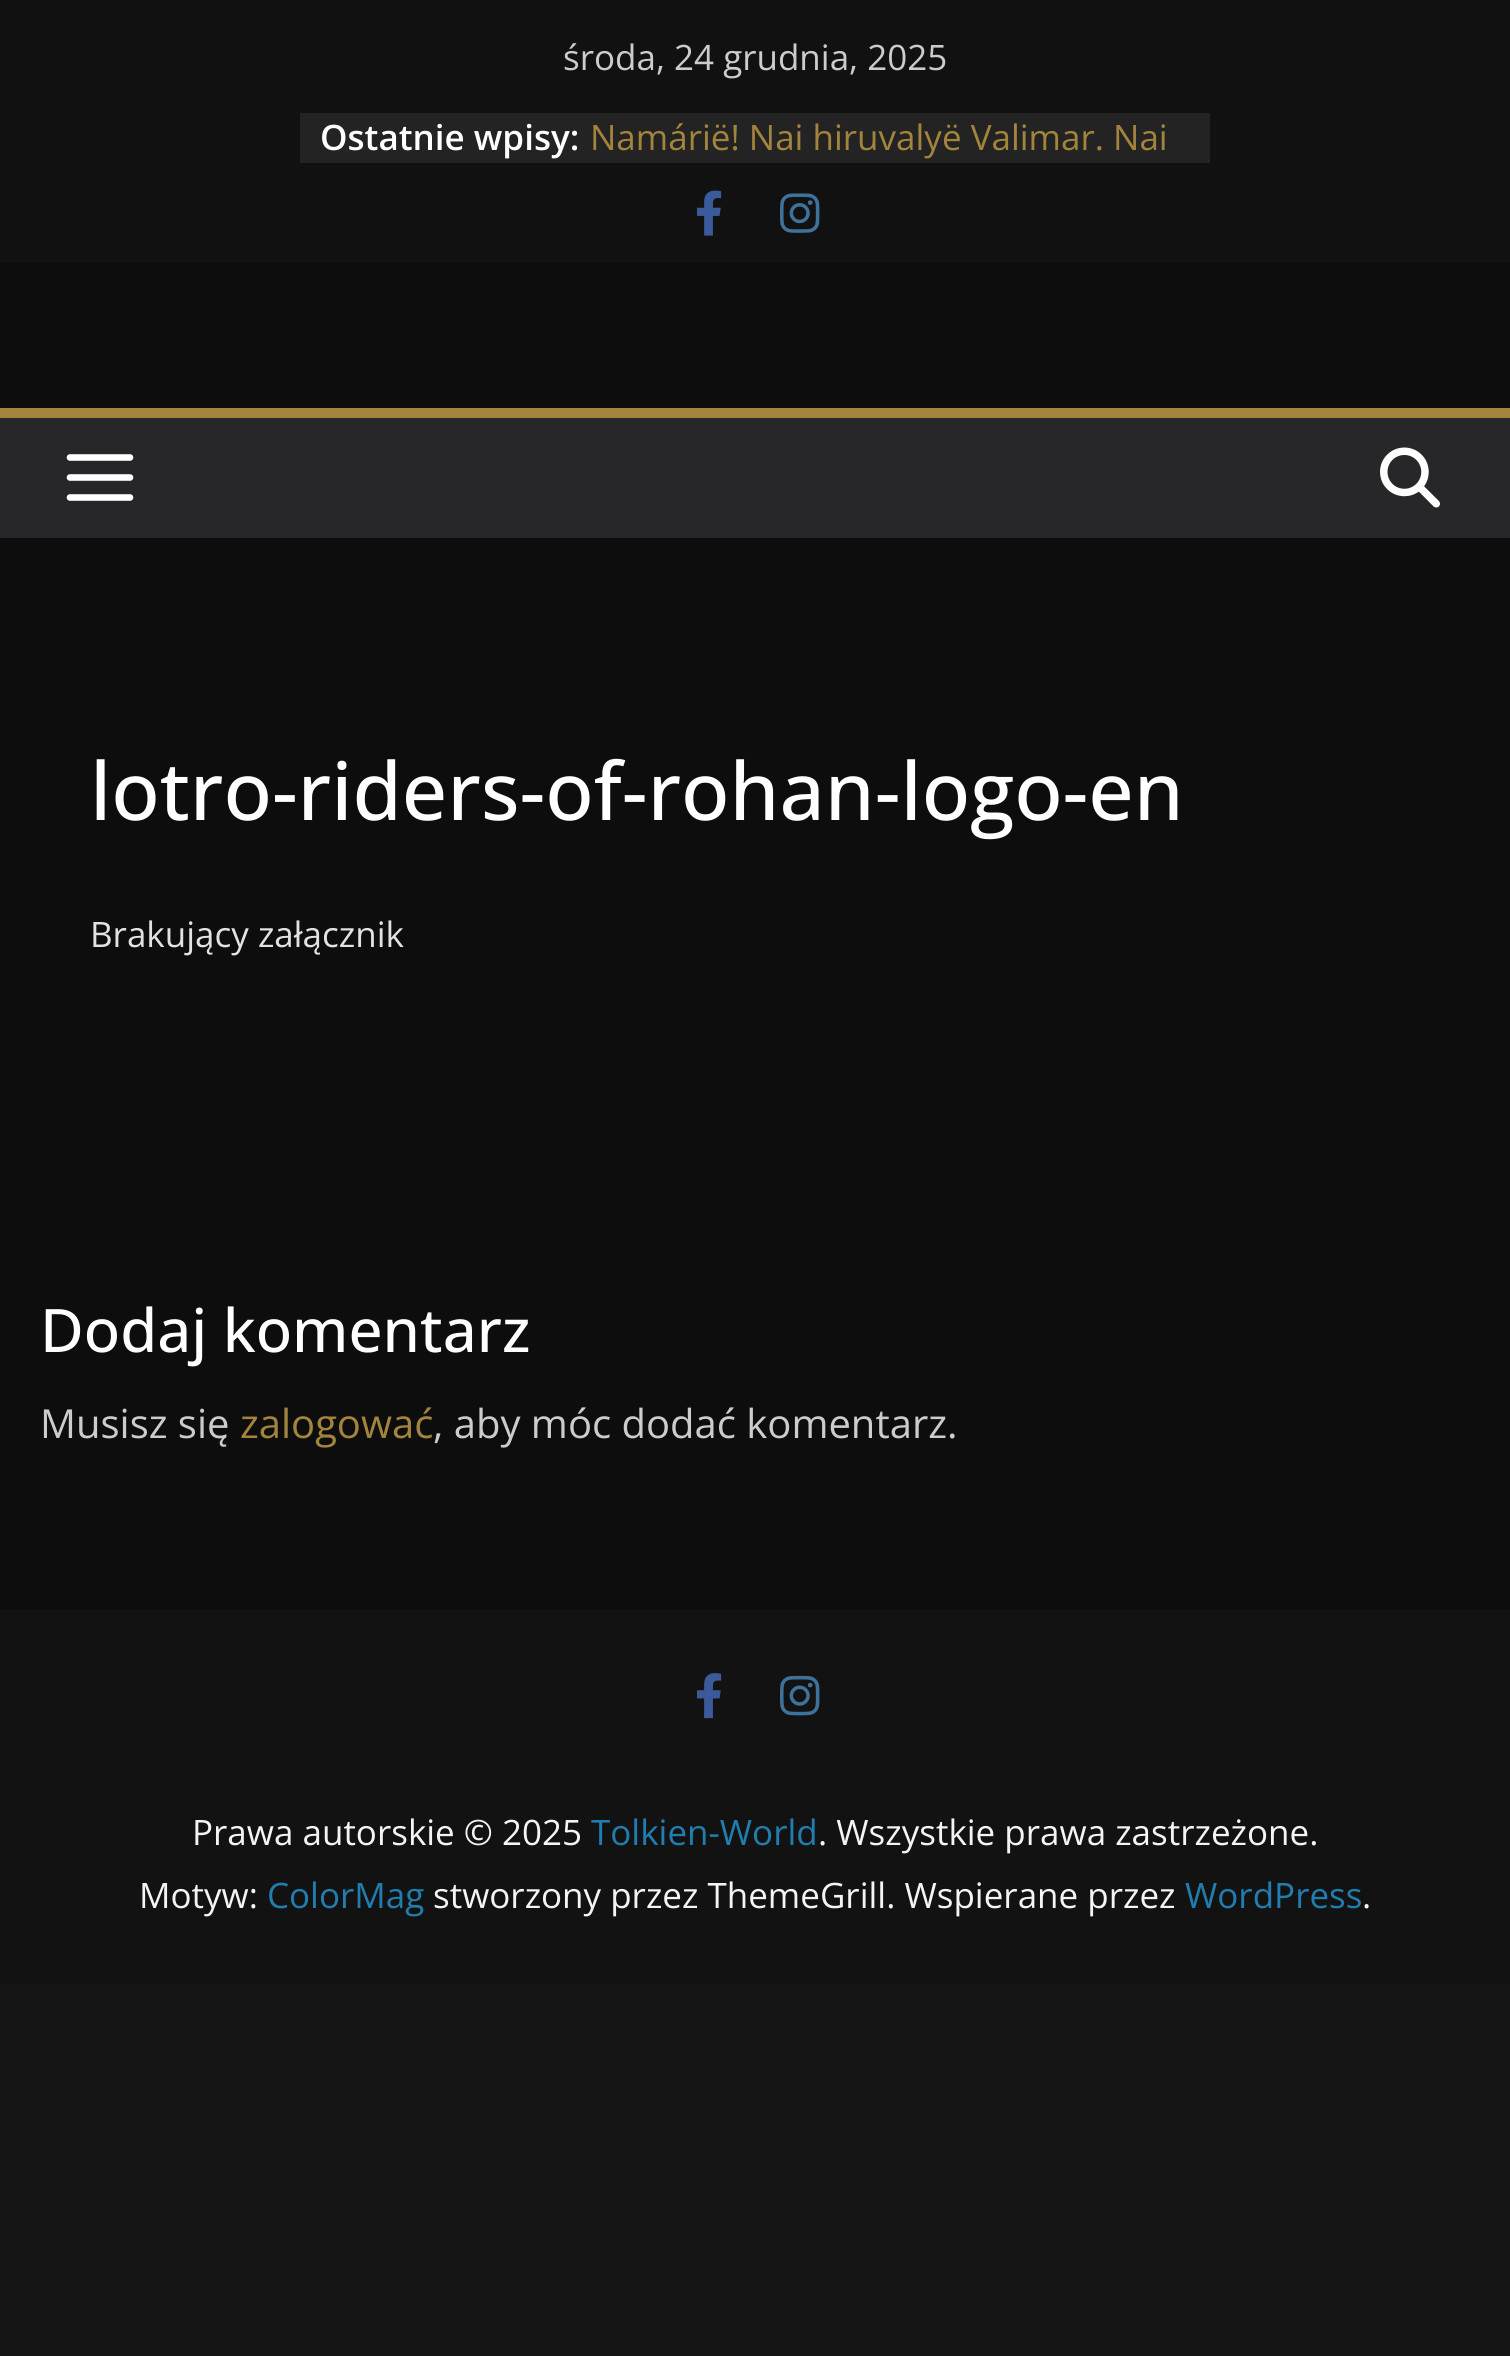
#include <cairo/cairo.h>
#include <math.h>
#include <stddef.h>


static void draw_image(cairo_t *cr, const char *path, double x, double y, double w, double h) {
  cairo_surface_t *image = cairo_image_surface_create_from_png(path);
  cairo_save(cr);
  cairo_set_source_surface(cr, image, x, y);
  cairo_rectangle(cr, x, y, w, h);
  cairo_fill(cr);
  cairo_restore(cr);
  cairo_surface_destroy(image);
}

static void draw(cairo_t *cr) {
  cairo_set_source_rgb(cr, 21 / 255.0, 21 / 255.0, 21 / 255.0);
  cairo_paint(cr);
  cairo_set_source_rgb(cr, 13 / 255.0, 13 / 255.0, 13 / 255.0);
  cairo_rectangle(cr, 0, 538, 1510, 1072);
  cairo_fill(cr);
  cairo_set_source_rgb(cr, 17 / 255.0, 17 / 255.0, 17 / 255.0);
  cairo_rectangle(cr, 0, 0, 1510, 263);
  cairo_fill(cr);
  cairo_set_source_rgb(cr, 35 / 255.0, 35 / 255.0, 35 / 255.0);
  cairo_rectangle(cr, 300, 113, 910, 50);
  cairo_fill(cr);
  draw_image(cr, "images/1.png", 697, 190, 25, 46);
  draw_image(cr, "images/2.png", 780, 193, 40, 40);
  cairo_set_source_rgb(cr, 13 / 255.0, 13 / 255.0, 13 / 255.0);
  cairo_rectangle(cr, 0, 263, 1510, 145);
  cairo_fill(cr);
  cairo_set_source_rgb(cr, 39 / 255.0, 39 / 255.0, 42 / 255.0);
  cairo_rectangle(cr, 0, 418, 1510, 120);
  cairo_fill(cr);
  cairo_set_source_rgb(cr, 163 / 255.0, 132 / 255.0, 60 / 255.0);
  cairo_rectangle(cr, 0, 408, 1510, 10);
  cairo_fill(cr);
  draw_image(cr, "images/3.png", 66, 454, 68, 47);
  draw_image(cr, "images/4.png", 1380, 447, 60, 61);
  cairo_set_source_rgb(cr, 18 / 255.0, 18 / 255.0, 18 / 255.0);
  cairo_rectangle(cr, 0, 1610, 1510, 375);
  cairo_fill(cr);
  draw_image(cr, "images/5.png", 697, 1673, 25, 46);
  draw_image(cr, "images/6.png", 780, 1675, 40, 41);
  cairo_select_font_face(cr, "Open Sans", CAIRO_FONT_SLANT_NORMAL, CAIRO_FONT_WEIGHT_NORMAL);
  cairo_set_font_size(cr, 35);
  cairo_set_source_rgb(cr, 204 / 255.0, 204 / 255.0, 204 / 255.0);
  cairo_move_to(cr, 563, 70);
  cairo_show_text(cr, "środa, 24 grudnia, 2025");
  cairo_select_font_face(cr, "Open Sans SemiBold", CAIRO_FONT_SLANT_NORMAL, CAIRO_FONT_WEIGHT_NORMAL);
  cairo_set_source_rgb(cr, 1, 1, 1);
  cairo_move_to(cr, 320, 150);
  cairo_show_text(cr, "Ostatnie wpisy:");
  cairo_select_font_face(cr, "Open Sans", CAIRO_FONT_SLANT_NORMAL, CAIRO_FONT_WEIGHT_NORMAL);
  cairo_set_source_rgb(cr, 163 / 255.0, 132 / 255.0, 60 / 255.0);
  cairo_move_to(cr, 590, 150);
  cairo_show_text(cr, "Namárië! Nai hiruvalyë Valimar. Nai");
  cairo_select_font_face(cr, "Open Sans Medium", CAIRO_FONT_SLANT_NORMAL, CAIRO_FONT_WEIGHT_NORMAL);
  cairo_set_font_size(cr, 80);
  cairo_set_source_rgb(cr, 1, 1, 1);
  cairo_move_to(cr, 90, 820);
  cairo_show_text(cr, "lotro-riders-of-rohan-logo-en");
  cairo_select_font_face(cr, "Open Sans", CAIRO_FONT_SLANT_NORMAL, CAIRO_FONT_WEIGHT_NORMAL);
  cairo_set_font_size(cr, 35);
  cairo_set_source_rgb(cr, 227 / 255.0, 226 / 255.0, 226 / 255.0);
  cairo_move_to(cr, 90, 947);
  cairo_show_text(cr, "Brakujący załącznik");
  cairo_select_font_face(cr, "Open Sans Medium", CAIRO_FONT_SLANT_NORMAL, CAIRO_FONT_WEIGHT_NORMAL);
  cairo_set_font_size(cr, 60);
  cairo_set_source_rgb(cr, 1, 1, 1);
  cairo_move_to(cr, 40, 1352);
  cairo_show_text(cr, "Dodaj komentarz");
  cairo_select_font_face(cr, "Open Sans", CAIRO_FONT_SLANT_NORMAL, CAIRO_FONT_WEIGHT_NORMAL);
  cairo_set_font_size(cr, 40);
  cairo_set_source_rgb(cr, 204 / 255.0, 204 / 255.0, 204 / 255.0);
  cairo_move_to(cr, 40, 1438);
  cairo_show_text(cr, "Musisz się");
  cairo_set_source_rgb(cr, 163 / 255.0, 132 / 255.0, 60 / 255.0);
  cairo_move_to(cr, 240, 1438);
  cairo_show_text(cr, "zalogować");
  cairo_set_source_rgb(cr, 204 / 255.0, 204 / 255.0, 204 / 255.0);
  cairo_move_to(cr, 433, 1438);
  cairo_show_text(cr, ", aby móc dodać komentarz.");
  cairo_set_font_size(cr, 35);
  cairo_set_source_rgb(cr, 244 / 255.0, 244 / 255.0, 245 / 255.0);
  cairo_move_to(cr, 192, 1845);
  cairo_show_text(cr, "Prawa autorskie © 2025");
  cairo_set_source_rgb(cr, 32 / 255.0, 125 / 255.0, 175 / 255.0);
  cairo_move_to(cr, 591, 1845);
  cairo_show_text(cr, "Tolkien-World");
  cairo_set_source_rgb(cr, 244 / 255.0, 244 / 255.0, 245 / 255.0);
  cairo_move_to(cr, 818, 1845);
  cairo_show_text(cr, ". Wszystkie prawa zastrzeżone.");
  cairo_move_to(cr, 139, 1908);
  cairo_show_text(cr, "Motyw:");
  cairo_set_source_rgb(cr, 32 / 255.0, 125 / 255.0, 175 / 255.0);
  cairo_move_to(cr, 267, 1908);
  cairo_show_text(cr, "ColorMag");
  cairo_set_source_rgb(cr, 244 / 255.0, 244 / 255.0, 245 / 255.0);
  cairo_move_to(cr, 433, 1908);
  cairo_show_text(cr, "stworzony przez ThemeGrill. Wspierane przez");
  cairo_set_source_rgb(cr, 32 / 255.0, 125 / 255.0, 175 / 255.0);
  cairo_move_to(cr, 1185, 1908);
  cairo_show_text(cr, "WordPress");
  cairo_set_source_rgb(cr, 244 / 255.0, 244 / 255.0, 245 / 255.0);
  cairo_move_to(cr, 1362, 1908);
  cairo_show_text(cr, ".");
}

int main(void) {
  cairo_surface_t *surface = cairo_image_surface_create(CAIRO_FORMAT_RGB24, 1510, 2356);
  cairo_t *cr = cairo_create(surface);
  cairo_font_options_t *options = cairo_font_options_create();
  cairo_font_options_set_hint_metrics(options, CAIRO_HINT_METRICS_OFF);
  cairo_font_options_set_hint_style(options, CAIRO_HINT_STYLE_NONE);
  cairo_set_font_options(cr, options);
  cairo_set_miter_limit(cr, 4);
  draw(cr);
  cairo_surface_write_to_png(surface, "out.png");
  cairo_font_options_destroy(options);
  cairo_destroy(cr);
  cairo_surface_destroy(surface);
  return 0;
}
